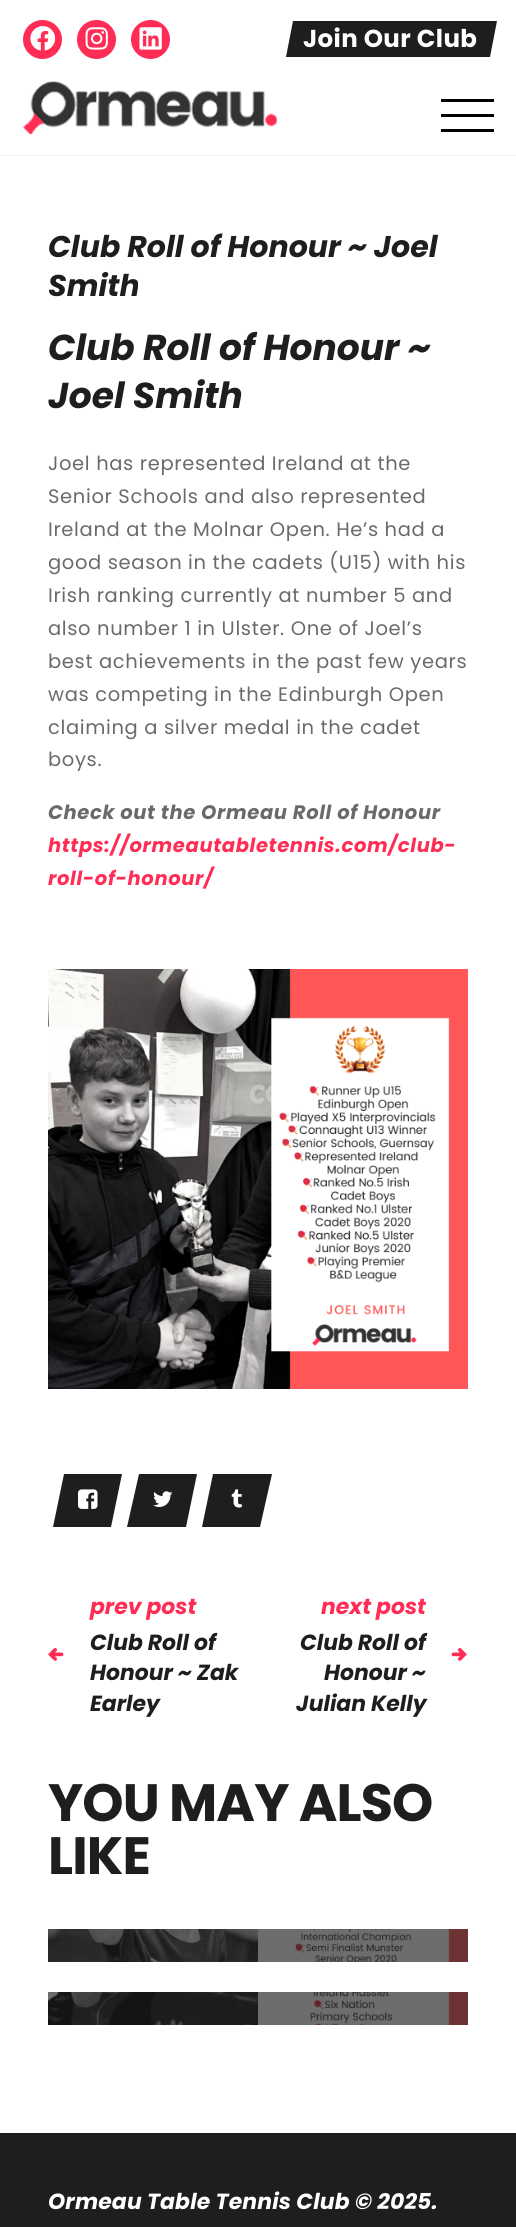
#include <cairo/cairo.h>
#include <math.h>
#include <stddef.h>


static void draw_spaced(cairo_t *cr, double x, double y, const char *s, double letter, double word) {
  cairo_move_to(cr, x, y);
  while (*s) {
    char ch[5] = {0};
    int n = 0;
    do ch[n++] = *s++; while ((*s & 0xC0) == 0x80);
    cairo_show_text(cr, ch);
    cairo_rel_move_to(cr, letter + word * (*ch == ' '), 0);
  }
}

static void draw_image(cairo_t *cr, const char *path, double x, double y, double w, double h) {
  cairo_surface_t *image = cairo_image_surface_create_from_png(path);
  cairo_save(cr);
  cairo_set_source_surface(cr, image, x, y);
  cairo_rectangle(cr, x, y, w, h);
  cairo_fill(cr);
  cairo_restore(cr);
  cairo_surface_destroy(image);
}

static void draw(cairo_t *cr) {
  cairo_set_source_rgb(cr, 1, 1, 1);
  cairo_paint(cr);
  cairo_set_source_rgb(cr, 239 / 255.0, 239 / 255.0, 239 / 255.0);
  cairo_rectangle(cr, 0, 155, 516, 1);
  cairo_fill(cr);
  cairo_set_source_rgb(cr, 1, 45 / 255.0, 85 / 255.0);
  cairo_arc(cr, 42.5, 39.5, 19.5, 0, 2 * M_PI);
  cairo_fill(cr);
  draw_image(cr, "images/1.png", 30, 26, 26, 25);
  cairo_arc(cr, 96.5, 39.5, 19.5, 0, 2 * M_PI);
  cairo_fill(cr);
  draw_image(cr, "images/2.png", 85, 27, 23, 23);
  cairo_arc(cr, 150.5, 39.5, 19.5, 0, 2 * M_PI);
  cairo_fill(cr);
  draw_image(cr, "images/3.png", 139, 27, 23, 23);
  cairo_set_source_rgb(cr, 30 / 255.0, 30 / 255.0, 30 / 255.0);
  cairo_new_path(cr);
  cairo_move_to(cr, 293, 21);
  cairo_line_to(cr, 497, 21);
  cairo_line_to(cr, 490, 57);
  cairo_line_to(cr, 286, 57);
  cairo_close_path(cr);
  cairo_fill(cr);
  draw_image(cr, "images/4.png", 22, 81, 256, 54);
  cairo_set_source_rgb(cr, 0, 0, 0);
  cairo_rectangle(cr, 441, 99, 53, 3);
  cairo_fill(cr);
  cairo_rectangle(cr, 441, 114, 53, 3);
  cairo_fill(cr);
  cairo_rectangle(cr, 441, 129, 53, 3);
  cairo_fill(cr);
  draw_image(cr, "images/5.png", 48, 969, 420, 420);
  cairo_set_source_rgb(cr, 30 / 255.0, 30 / 255.0, 30 / 255.0);
  cairo_new_path(cr);
  cairo_move_to(cr, 64, 1474);
  cairo_line_to(cr, 122, 1474);
  cairo_line_to(cr, 111, 1527);
  cairo_line_to(cr, 53, 1527);
  cairo_close_path(cr);
  cairo_fill(cr);
  draw_image(cr, "images/6.png", 78, 1489, 20, 20);
  cairo_new_path(cr);
  cairo_move_to(cr, 139, 1474);
  cairo_line_to(cr, 197, 1474);
  cairo_line_to(cr, 186, 1527);
  cairo_line_to(cr, 127, 1527);
  cairo_close_path(cr);
  cairo_fill(cr);
  draw_image(cr, "images/7.png", 153, 1491, 20, 16);
  cairo_new_path(cr);
  cairo_move_to(cr, 213, 1474);
  cairo_line_to(cr, 272, 1474);
  cairo_line_to(cr, 260, 1527);
  cairo_line_to(cr, 202, 1527);
  cairo_close_path(cr);
  cairo_fill(cr);
  draw_image(cr, "images/8.png", 231, 1489, 12, 19);
  draw_image(cr, "images/9.png", 48, 1648, 16, 13);
  draw_image(cr, "images/10.png", 451, 1648, 16, 13);
  draw_image(cr, "images/11.png", 48, 1929, 420, 33);
  draw_image(cr, "images/12.png", 48, 1992, 420, 33);
  cairo_rectangle(cr, 0, 2133, 516, 94);
  cairo_fill(cr);
  cairo_select_font_face(cr, "Poppins", CAIRO_FONT_SLANT_NORMAL, CAIRO_FONT_WEIGHT_BOLD);
  cairo_set_font_size(cr, 24.5);
  cairo_set_source_rgb(cr, 1, 1, 1);
  draw_spaced(cr, 303, 47, "Join Our Club", 0.4, 0);
  cairo_select_font_face(cr, "Poppins", CAIRO_FONT_SLANT_ITALIC, CAIRO_FONT_WEIGHT_BOLD);
  cairo_set_font_size(cr, 30);
  cairo_set_source_rgb(cr, 30 / 255.0, 30 / 255.0, 30 / 255.0);
  cairo_move_to(cr, 48, 257);
  cairo_show_text(cr, "Club Roll of Honour ~ Joel");
  cairo_move_to(cr, 48, 296);
  cairo_show_text(cr, "Smith");
  cairo_set_font_size(cr, 36);
  cairo_move_to(cr, 48, 360);
  cairo_show_text(cr, "Club Roll of Honour ~");
  cairo_move_to(cr, 48, 408);
  cairo_show_text(cr, "Joel Smith");
  cairo_select_font_face(cr, "Poppins", CAIRO_FONT_SLANT_NORMAL, CAIRO_FONT_WEIGHT_NORMAL);
  cairo_set_font_size(cr, 19.5);
  cairo_set_source_rgb(cr, 106 / 255.0, 106 / 255.0, 106 / 255.0);
  draw_spaced(cr, 48, 470, "Joel has represented Ireland at the", 0.65, 0);
  draw_spaced(cr, 48, 503, "Senior Schools and also represented", 0.65, 0);
  draw_spaced(cr, 48, 536, "Ireland at the Molnar Open. He’s had a", 0.65, 0);
  draw_spaced(cr, 48, 569, "good season in the cadets (U15) with his", 0.65, 0);
  draw_spaced(cr, 48, 602, "Irish ranking currently at number 5 and", 0.65, 0);
  draw_spaced(cr, 48, 635, "also number 1 in Ulster. One of Joel’s", 0.65, 0);
  draw_spaced(cr, 48, 668, "best achievements in the past few years", 0.65, 0);
  draw_spaced(cr, 48, 701, "was competing in the Edinburgh Open", 0.65, 0);
  draw_spaced(cr, 48, 734, "claiming a silver medal in the cadet", 0.65, 0);
  draw_spaced(cr, 48, 766, "boys.", 0.65, 0);
  cairo_select_font_face(cr, "Poppins", CAIRO_FONT_SLANT_ITALIC, CAIRO_FONT_WEIGHT_BOLD);
  draw_spaced(cr, 48, 819, "Check out the Ormeau Roll of Honour", 0.65, 0);
  cairo_set_source_rgb(cr, 1, 45 / 255.0, 85 / 255.0);
  draw_spaced(cr, 48, 852, "https://ormeautabletennis.com/club-", 0.65, 0);
  draw_spaced(cr, 48, 885, "roll-of-honour/", 0.65, 0);
  cairo_set_font_size(cr, 21.9);
  cairo_move_to(cr, 90, 1614);
  cairo_show_text(cr, "prev post");
  cairo_set_source_rgb(cr, 30 / 255.0, 30 / 255.0, 30 / 255.0);
  cairo_move_to(cr, 90, 1650);
  cairo_show_text(cr, "Club Roll of");
  cairo_move_to(cr, 90, 1680);
  cairo_show_text(cr, "Honour ~ Zak");
  cairo_move_to(cr, 90, 1711);
  cairo_show_text(cr, "Earley");
  cairo_set_source_rgb(cr, 1, 45 / 255.0, 85 / 255.0);
  cairo_move_to(cr, 321, 1614);
  cairo_show_text(cr, "next post");
  cairo_set_source_rgb(cr, 30 / 255.0, 30 / 255.0, 30 / 255.0);
  cairo_move_to(cr, 300, 1650);
  cairo_show_text(cr, "Club Roll of");
  cairo_move_to(cr, 324, 1680);
  cairo_show_text(cr, "Honour ~");
  cairo_move_to(cr, 296, 1711);
  cairo_show_text(cr, "Julian Kelly");
  cairo_select_font_face(cr, "Poppins", CAIRO_FONT_SLANT_NORMAL, CAIRO_FONT_WEIGHT_BOLD);
  cairo_set_font_size(cr, 52.5);
  draw_spaced(cr, 48, 1821, "YOU MAY ALSO", -0.9, 0);
  draw_spaced(cr, 48, 1874, "LIKE", -0.9, 0);
  cairo_select_font_face(cr, "Poppins", CAIRO_FONT_SLANT_ITALIC, CAIRO_FONT_WEIGHT_BOLD);
  cairo_set_font_size(cr, 21.9);
  cairo_set_source_rgb(cr, 1, 1, 1);
  draw_spaced(cr, 48, 2209, "Ormeau Table Tennis Club © 2025.", 0.15, 0);
}

int main(void) {
  cairo_surface_t *surface = cairo_image_surface_create(CAIRO_FORMAT_RGB24, 516, 2227);
  cairo_t *cr = cairo_create(surface);
  cairo_font_options_t *options = cairo_font_options_create();
  cairo_font_options_set_hint_metrics(options, CAIRO_HINT_METRICS_OFF);
  cairo_font_options_set_hint_style(options, CAIRO_HINT_STYLE_NONE);
  cairo_set_font_options(cr, options);
  cairo_set_miter_limit(cr, 4);
  draw(cr);
  cairo_surface_write_to_png(surface, "out.png");
  cairo_font_options_destroy(options);
  cairo_destroy(cr);
  cairo_surface_destroy(surface);
  return 0;
}
